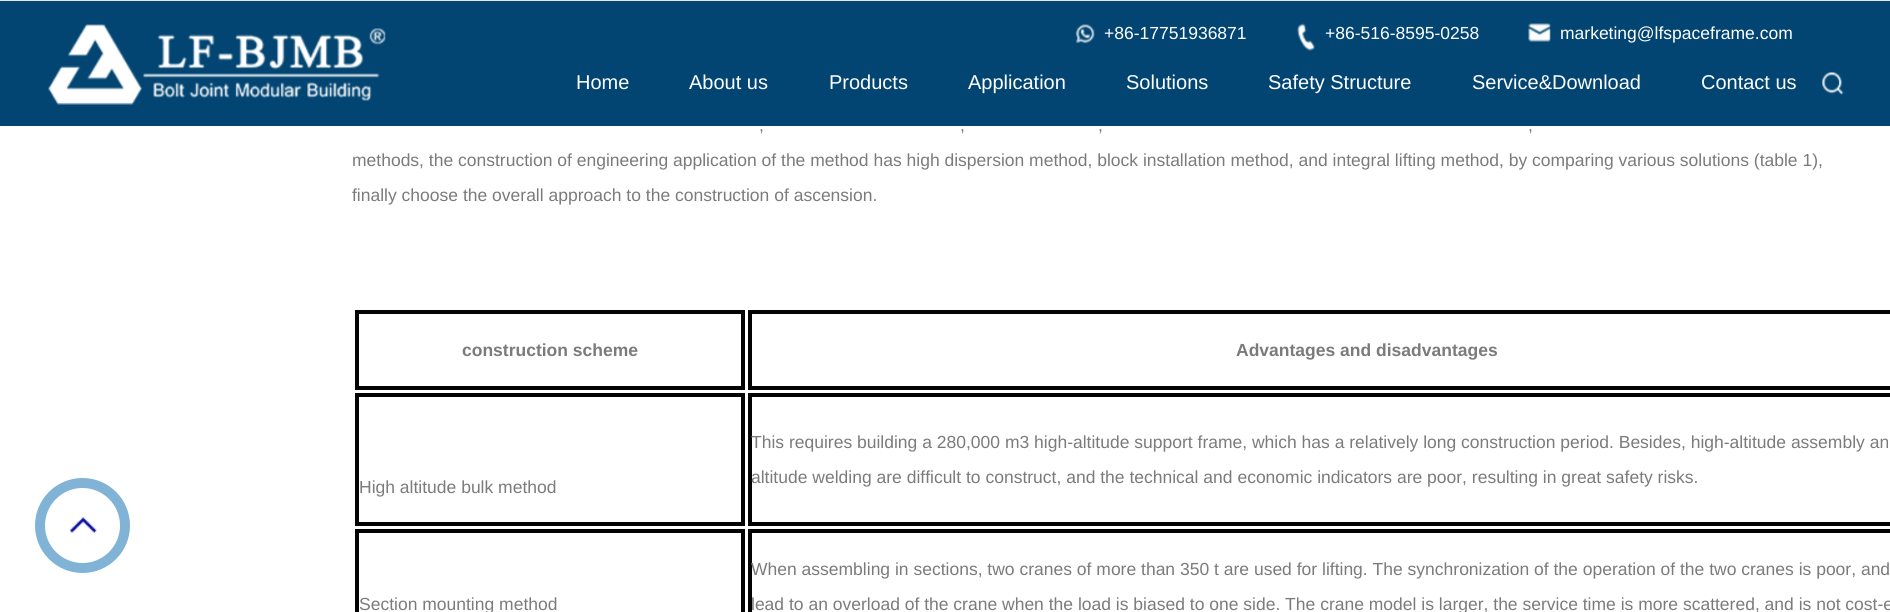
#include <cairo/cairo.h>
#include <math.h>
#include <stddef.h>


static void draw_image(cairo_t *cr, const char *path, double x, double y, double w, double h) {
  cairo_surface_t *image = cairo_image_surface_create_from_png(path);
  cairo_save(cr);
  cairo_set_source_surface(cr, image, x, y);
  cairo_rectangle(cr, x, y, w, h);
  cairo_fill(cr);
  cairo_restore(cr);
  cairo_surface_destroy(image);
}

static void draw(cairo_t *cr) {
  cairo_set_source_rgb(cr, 1, 1, 1);
  cairo_paint(cr);
  cairo_set_source_rgb(cr, 2 / 255.0, 69 / 255.0, 114 / 255.0);
  cairo_rectangle(cr, 0, 1, 1890, 125);
  cairo_fill(cr);
  cairo_set_source_rgb(cr, 230 / 255.0, 230 / 255.0, 230 / 255.0);
  cairo_rectangle(cr, 0, 0, 1890, 1);
  cairo_fill(cr);
  draw_image(cr, "images/1.png", 48, 24, 338, 81);
  draw_image(cr, "images/2.png", 1075, 24, 20, 20);
  draw_image(cr, "images/3.png", 1297, 23, 18, 28);
  draw_image(cr, "images/4.png", 1528, 23, 23, 19);
  draw_image(cr, "images/5.png", 1822, 72, 22, 23);
  cairo_set_source_rgb(cr, 128 / 255.0, 179 / 255.0, 214 / 255.0);
  cairo_arc(cr, 82.5, 525.5, 47.5, 0, 2 * M_PI);
  cairo_fill(cr);
  cairo_set_source_rgb(cr, 1, 1, 1);
  cairo_arc(cr, 82.5, 525.5, 37.5, 0, 2 * M_PI);
  cairo_fill(cr);
  draw_image(cr, "images/6.png", 69, 517, 28, 16);
  cairo_rectangle(cr, 357, 312, 386, 76);
  cairo_set_source_rgb(cr, 3 / 255.0, 3 / 255.0, 3 / 255.0);
  cairo_set_line_width(cr, 4);
  cairo_stroke(cr);
  cairo_rectangle(cr, 750, 312, 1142, 76);
  cairo_stroke(cr);
  cairo_rectangle(cr, 357, 395, 386, 129);
  cairo_stroke(cr);
  cairo_rectangle(cr, 750, 395, 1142, 129);
  cairo_stroke(cr);
  cairo_rectangle(cr, 357, 531, 386, 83);
  cairo_stroke(cr);
  cairo_rectangle(cr, 750, 531, 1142, 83);
  cairo_stroke(cr);
  cairo_select_font_face(cr, "Liberation Sans", CAIRO_FONT_SLANT_NORMAL, CAIRO_FONT_WEIGHT_NORMAL);
  cairo_set_font_size(cr, 17.5);
  cairo_set_source_rgb(cr, 1, 1, 1);
  cairo_move_to(cr, 1104, 39);
  cairo_show_text(cr, "+86-17751936871");
  cairo_move_to(cr, 1325, 39);
  cairo_show_text(cr, "+86-516-8595-0258");
  cairo_move_to(cr, 1560, 39);
  cairo_show_text(cr, "marketing@lfspaceframe.com");
  cairo_set_font_size(cr, 20);
  cairo_move_to(cr, 576, 89);
  cairo_show_text(cr, "Home");
  cairo_move_to(cr, 689, 89);
  cairo_show_text(cr, "About us");
  cairo_move_to(cr, 829, 89);
  cairo_show_text(cr, "Products");
  cairo_move_to(cr, 968, 89);
  cairo_show_text(cr, "Application");
  cairo_move_to(cr, 1126, 89);
  cairo_show_text(cr, "Solutions");
  cairo_move_to(cr, 1268, 89);
  cairo_show_text(cr, "Safety Structure");
  cairo_move_to(cr, 1472, 89);
  cairo_show_text(cr, "Service&Download");
  cairo_move_to(cr, 1701, 89);
  cairo_show_text(cr, "Contact us");
  cairo_set_font_size(cr, 17.5);
  cairo_set_source_rgb(cr, 123 / 255.0, 123 / 255.0, 123 / 255.0);
  cairo_move_to(cr, 759, 131);
  cairo_show_text(cr, ",");
  cairo_move_to(cr, 960, 131);
  cairo_show_text(cr, ",");
  cairo_move_to(cr, 1098, 131);
  cairo_show_text(cr, ",");
  cairo_move_to(cr, 1528, 131);
  cairo_show_text(cr, ",");
  cairo_move_to(cr, 352, 166);
  cairo_show_text(cr, "methods, the construction of engineering application of the method has high dispersion method, block installation method, and integral lifting method, by comparing various solutions (table 1),");
  cairo_move_to(cr, 352, 201);
  cairo_show_text(cr, "finally choose the overall approach to the construction of ascension.");
  cairo_select_font_face(cr, "Liberation Sans", CAIRO_FONT_SLANT_NORMAL, CAIRO_FONT_WEIGHT_BOLD);
  cairo_move_to(cr, 462, 356);
  cairo_show_text(cr, "construction scheme");
  cairo_move_to(cr, 1236, 356);
  cairo_show_text(cr, "Advantages and disadvantages");
  cairo_select_font_face(cr, "Liberation Sans", CAIRO_FONT_SLANT_NORMAL, CAIRO_FONT_WEIGHT_NORMAL);
  cairo_move_to(cr, 359, 493);
  cairo_show_text(cr, "High altitude bulk method");
  cairo_move_to(cr, 751, 448);
  cairo_show_text(cr, "This requires building a 280,000 m3 high-altitude support frame, which has a relatively long construction period. Besides, high-altitude assembly an");
  cairo_move_to(cr, 751, 483);
  cairo_show_text(cr, "altitude welding are difficult to construct, and the technical and economic indicators are poor, resulting in great safety risks.");
  cairo_move_to(cr, 359, 610);
  cairo_show_text(cr, "Section mounting method");
  cairo_move_to(cr, 751, 575);
  cairo_show_text(cr, "When assembling in sections, two cranes of more than 350 t are used for lifting. The synchronization of the operation of the two cranes is poor, and");
  cairo_move_to(cr, 751, 610);
  cairo_show_text(cr, "lead to an overload of the crane when the load is biased to one side. The crane model is larger, the service time is more scattered, and is not cost-e");
}

int main(void) {
  cairo_surface_t *surface = cairo_image_surface_create(CAIRO_FORMAT_RGB24, 1890, 612);
  cairo_t *cr = cairo_create(surface);
  cairo_font_options_t *options = cairo_font_options_create();
  cairo_font_options_set_hint_metrics(options, CAIRO_HINT_METRICS_OFF);
  cairo_font_options_set_hint_style(options, CAIRO_HINT_STYLE_NONE);
  cairo_set_font_options(cr, options);
  cairo_set_miter_limit(cr, 4);
  draw(cr);
  cairo_surface_write_to_png(surface, "out.png");
  cairo_font_options_destroy(options);
  cairo_destroy(cr);
  cairo_surface_destroy(surface);
  return 0;
}
